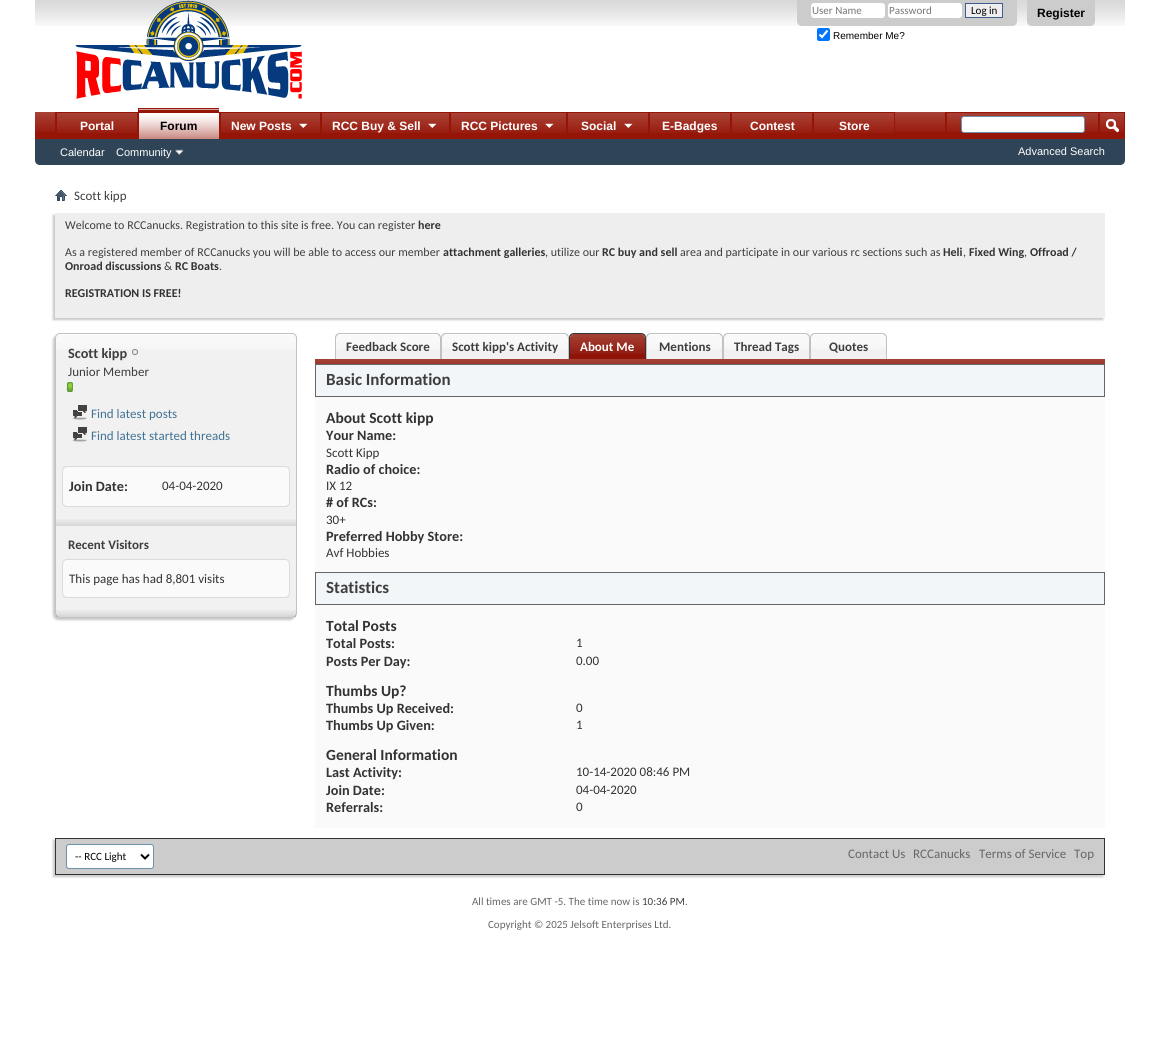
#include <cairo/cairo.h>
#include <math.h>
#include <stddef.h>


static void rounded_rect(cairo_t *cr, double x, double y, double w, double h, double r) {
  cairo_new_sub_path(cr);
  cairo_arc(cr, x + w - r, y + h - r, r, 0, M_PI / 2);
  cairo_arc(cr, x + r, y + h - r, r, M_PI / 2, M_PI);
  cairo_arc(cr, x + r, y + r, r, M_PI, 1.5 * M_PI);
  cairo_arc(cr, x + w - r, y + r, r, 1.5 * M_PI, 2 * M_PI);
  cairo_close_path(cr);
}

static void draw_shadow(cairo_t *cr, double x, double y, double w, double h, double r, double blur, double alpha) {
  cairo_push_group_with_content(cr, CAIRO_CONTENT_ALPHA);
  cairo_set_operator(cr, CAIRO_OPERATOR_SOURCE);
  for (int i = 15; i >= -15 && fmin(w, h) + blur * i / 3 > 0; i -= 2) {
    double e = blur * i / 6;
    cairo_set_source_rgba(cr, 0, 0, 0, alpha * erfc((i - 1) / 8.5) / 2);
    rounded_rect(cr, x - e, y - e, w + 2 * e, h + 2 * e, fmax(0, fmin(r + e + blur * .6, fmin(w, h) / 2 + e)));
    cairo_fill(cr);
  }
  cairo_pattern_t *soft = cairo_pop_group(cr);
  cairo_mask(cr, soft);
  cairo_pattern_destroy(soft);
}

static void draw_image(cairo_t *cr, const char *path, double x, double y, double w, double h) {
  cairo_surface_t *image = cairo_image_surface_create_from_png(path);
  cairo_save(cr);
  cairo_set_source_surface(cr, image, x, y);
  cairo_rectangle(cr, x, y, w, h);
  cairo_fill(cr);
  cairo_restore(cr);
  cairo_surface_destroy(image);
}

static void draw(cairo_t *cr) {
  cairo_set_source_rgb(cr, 1, 1, 1);
  cairo_paint(cr);
  draw_image(cr, "images/1.png", 35, 0, 1090, 26);
  draw_image(cr, "images/2.png", 75, 0, 227, 99);
  cairo_set_source_rgb(cr, 204 / 255.0, 204 / 255.0, 204 / 255.0);
  cairo_new_path(cr);
  cairo_move_to(cr, 797, 0);
  cairo_line_to(cr, 1017, 0);
  cairo_line_to(cr, 1017, 21);
  cairo_curve_to(cr, 1017, 24, 1015, 26, 1012, 26);
  cairo_line_to(cr, 802, 26);
  cairo_curve_to(cr, 799, 26, 797, 24, 797, 21);
  cairo_close_path(cr);
  cairo_fill(cr);
  cairo_set_source_rgb(cr, 1, 1, 1);
  rounded_rect(cr, 811, 3, 74, 15, 3);
  cairo_fill(cr);
  rounded_rect(cr, 888, 3, 74, 15, 3);
  cairo_fill(cr);
  cairo_set_source_rgb(cr, 239 / 255.0, 239 / 255.0, 239 / 255.0);
  cairo_rectangle(cr, 965.5, 3.5, 37, 14);
  cairo_fill_preserve(cr);
  cairo_set_source_rgb(cr, 65 / 255.0, 93 / 255.0, 141 / 255.0);
  cairo_set_line_width(cr, 1);
  cairo_stroke(cr);
  cairo_set_source_rgb(cr, 0, 117 / 255.0, 1);
  rounded_rect(cr, 817, 28, 13, 13, 2);
  cairo_fill(cr);
  cairo_new_path(cr);
  cairo_move_to(cr, 819.5, 34.5);
  cairo_line_to(cr, 822, 37);
  cairo_line_to(cr, 827.5, 30.5);
  cairo_set_source_rgb(cr, 1, 1, 1);
  cairo_set_line_width(cr, 2.1);
  cairo_stroke(cr);
  cairo_set_source_rgb(cr, 204 / 255.0, 204 / 255.0, 204 / 255.0);
  cairo_new_path(cr);
  cairo_move_to(cr, 1027, 0);
  cairo_line_to(cr, 1095, 0);
  cairo_line_to(cr, 1095, 21);
  cairo_curve_to(cr, 1095, 24, 1093, 26, 1090, 26);
  cairo_line_to(cr, 1032, 26);
  cairo_curve_to(cr, 1029, 26, 1027, 24, 1027, 21);
  cairo_close_path(cr);
  cairo_fill(cr);
  cairo_set_source_rgb(cr, 47 / 255.0, 68 / 255.0, 86 / 255.0);
  cairo_new_path(cr);
  cairo_move_to(cr, 35, 112);
  cairo_line_to(cr, 1125, 112);
  cairo_line_to(cr, 1125, 160);
  cairo_curve_to(cr, 1125, 163, 1123, 165, 1120, 165);
  cairo_line_to(cr, 40, 165);
  cairo_curve_to(cr, 37, 165, 35, 163, 35, 160);
  cairo_close_path(cr);
  cairo_fill(cr);
  cairo_set_source_rgb(cr, 149 / 255.0, 21 / 255.0, 7 / 255.0);
  cairo_rectangle(cr, 35, 112, 1090, 26);
  cairo_fill(cr);
  draw_image(cr, "images/3.png", 35, 112, 1089, 20);
  cairo_rectangle(cr, 137, 112, 1, 27);
  cairo_fill(cr);
  cairo_rectangle(cr, 55, 112, 2, 27);
  cairo_fill(cr);
  cairo_rectangle(cr, 57, 112, 80, 20);
  cairo_fill(cr);
  draw_image(cr, "images/4.png", 57, 113, 80, 20);
  cairo_rectangle(cr, 219, 112, 1, 26);
  cairo_fill(cr);
  cairo_rectangle(cr, 139, 108, 80, 24);
  cairo_fill(cr);
  cairo_rectangle(cr, 730, 112, 2, 27);
  cairo_fill(cr);
  cairo_rectangle(cr, 649, 112, 1, 27);
  cairo_fill(cr);
  cairo_rectangle(cr, 812, 112, 2, 27);
  cairo_fill(cr);
  cairo_rectangle(cr, 894, 112, 1, 27);
  cairo_fill(cr);
  cairo_rectangle(cr, 35, 138, 1090, 1);
  cairo_fill(cr);
  draw_image(cr, "images/5.png", 139, 109, 80, 30);
  cairo_rectangle(cr, 138, 108, 1, 31);
  cairo_fill(cr);
  cairo_rectangle(cr, 320, 112, 2, 27);
  cairo_fill(cr);
  cairo_rectangle(cr, 221, 112, 99, 20);
  cairo_fill(cr);
  draw_image(cr, "images/6.png", 221, 113, 99, 20);
  cairo_rectangle(cr, 220, 112, 1, 27);
  cairo_fill(cr);
  draw_image(cr, "images/7.png", 299, 123, 9, 5);
  cairo_rectangle(cr, 449, 112, 2, 27);
  cairo_fill(cr);
  cairo_rectangle(cr, 322, 112, 127, 20);
  cairo_fill(cr);
  draw_image(cr, "images/8.png", 322, 113, 127, 20);
  draw_image(cr, "images/7.png", 428, 123, 9, 5);
  cairo_rectangle(cr, 566, 112, 2, 27);
  cairo_fill(cr);
  cairo_rectangle(cr, 451, 112, 115, 20);
  cairo_fill(cr);
  draw_image(cr, "images/9.png", 451, 113, 115, 20);
  draw_image(cr, "images/7.png", 545, 123, 9, 5);
  cairo_rectangle(cr, 648, 112, 1, 27);
  cairo_fill(cr);
  cairo_rectangle(cr, 568, 112, 80, 20);
  cairo_fill(cr);
  draw_image(cr, "images/4.png", 568, 113, 80, 20);
  draw_image(cr, "images/7.png", 624, 123, 9, 5);
  cairo_rectangle(cr, 650, 112, 80, 20);
  cairo_fill(cr);
  draw_image(cr, "images/4.png", 650, 113, 80, 20);
  cairo_rectangle(cr, 732, 112, 80, 20);
  cairo_fill(cr);
  draw_image(cr, "images/4.png", 732, 113, 80, 20);
  cairo_rectangle(cr, 814, 112, 80, 20);
  cairo_fill(cr);
  draw_image(cr, "images/4.png", 814, 113, 80, 20);
  draw_image(cr, "images/10.png", 175, 149, 9, 6);
  cairo_rectangle(cr, 945, 112, 1, 26);
  cairo_fill(cr);
  cairo_rectangle(cr, 946, 112, 152, 1);
  cairo_fill(cr);
  cairo_rectangle(cr, 946, 112, 1, 26);
  cairo_fill(cr);
  cairo_set_source_rgb(cr, 1, 1, 1);
  rounded_rect(cr, 961.5, 116.5, 123, 16, 2.5);
  cairo_fill_preserve(cr);
  cairo_set_source_rgb(cr, 107 / 255.0, 145 / 255.0, 171 / 255.0);
  cairo_set_line_width(cr, 1);
  cairo_stroke(cr);
  cairo_set_source_rgb(cr, 149 / 255.0, 21 / 255.0, 7 / 255.0);
  cairo_rectangle(cr, 1098, 112, 1, 26);
  cairo_fill(cr);
  cairo_rectangle(cr, 1099, 112, 25, 1);
  cairo_fill(cr);
  cairo_rectangle(cr, 1099, 112, 1, 26);
  cairo_fill(cr);
  draw_image(cr, "images/11.png", 1106, 119, 13, 14);
  draw_image(cr, "images/12.png", 55, 190, 12, 11);
  cairo_set_source_rgb(cr, 200 / 255.0, 200 / 255.0, 200 / 255.0);
  draw_shadow(cr, 53, 215, 1050, 105, 0, 1, 1);
  cairo_set_source_rgb(cr, 239 / 255.0, 238 / 255.0, 238 / 255.0);
  cairo_rectangle(cr, 55, 213, 1050, 105);
  cairo_fill(cr);
  cairo_set_source_rgb(cr, 200 / 255.0, 200 / 255.0, 200 / 255.0);
  draw_shadow(cr, 53, 335, 242, 285, 5, 1, 1);
  cairo_set_source_rgb(cr, 241 / 255.0, 241 / 255.0, 241 / 255.0);
  rounded_rect(cr, 55, 333, 242, 285, 5);
  cairo_fill(cr);
  draw_image(cr, "images/13.png", 55, 334, 242, 15);
  rounded_rect(cr, 55.5, 333.5, 241, 284, 4.5);
  cairo_set_source_rgb(cr, 193 / 255.0, 193 / 255.0, 193 / 255.0);
  cairo_stroke(cr);
  draw_image(cr, "images/14.png", 58, 334, 236, 1);
  draw_image(cr, "images/15.png", 132, 349, 6, 6);
  draw_image(cr, "images/16.png", 66, 382, 7, 10);
  draw_image(cr, "images/17.png", 72, 405, 15, 15);
  draw_image(cr, "images/17.png", 72, 427, 15, 15);
  rounded_rect(cr, 62.5, 466.5, 227, 40, 4.5);
  cairo_set_source_rgb(cr, 218 / 255.0, 218 / 255.0, 218 / 255.0);
  cairo_stroke(cr);
  cairo_set_source_rgb(cr, 250 / 255.0, 250 / 255.0, 250 / 255.0);
  rounded_rect(cr, 63, 467, 226, 39, 5);
  cairo_fill(cr);
  cairo_rectangle(cr, 286, 467, 1, 1);
  cairo_fill(cr);
  draw_image(cr, "images/18.png", 56, 519, 240, 7);
  rounded_rect(cr, 62.5, 559.5, 227, 38, 4.5);
  cairo_set_source_rgb(cr, 218 / 255.0, 218 / 255.0, 218 / 255.0);
  cairo_stroke(cr);
  cairo_set_source_rgb(cr, 250 / 255.0, 250 / 255.0, 250 / 255.0);
  rounded_rect(cr, 63, 560, 226, 37, 5);
  cairo_fill(cr);
  cairo_rectangle(cr, 286, 560, 1, 1);
  cairo_fill(cr);
  draw_image(cr, "images/19.png", 56, 610, 240, 7);
  cairo_set_source_rgb(cr, 241 / 255.0, 241 / 255.0, 241 / 255.0);
  cairo_new_path(cr);
  cairo_move_to(cr, 340, 334);
  cairo_line_to(cr, 436, 334);
  cairo_curve_to(cr, 438, 334, 440, 336, 440, 338);
  cairo_line_to(cr, 440, 359);
  cairo_line_to(cr, 336, 359);
  cairo_line_to(cr, 336, 338);
  cairo_curve_to(cr, 336, 336, 338, 334, 340, 334);
  cairo_close_path(cr);
  cairo_fill(cr);
  draw_image(cr, "images/20.png", 336, 334, 104, 15);
  cairo_set_source_rgb(cr, 193 / 255.0, 193 / 255.0, 193 / 255.0);
  cairo_set_fill_rule(cr, CAIRO_FILL_RULE_EVEN_ODD);
  cairo_new_path(cr);
  cairo_move_to(cr, 340, 333);
  cairo_line_to(cr, 436, 333);
  cairo_curve_to(cr, 439, 333, 441, 335, 441, 338);
  cairo_line_to(cr, 441, 359);
  cairo_line_to(cr, 335, 359);
  cairo_line_to(cr, 335, 338);
  cairo_curve_to(cr, 335, 335, 337, 333, 340, 333);
  cairo_close_path(cr);
  cairo_move_to(cr, 340, 334);
  cairo_line_to(cr, 436, 334);
  cairo_curve_to(cr, 438, 334, 440, 336, 440, 338);
  cairo_line_to(cr, 440, 359);
  cairo_line_to(cr, 336, 359);
  cairo_line_to(cr, 336, 338);
  cairo_curve_to(cr, 336, 336, 338, 334, 340, 334);
  cairo_close_path(cr);
  cairo_fill(cr);
  cairo_set_source_rgb(cr, 241 / 255.0, 241 / 255.0, 241 / 255.0);
  cairo_new_path(cr);
  cairo_move_to(cr, 446, 334);
  cairo_line_to(cr, 564, 334);
  cairo_curve_to(cr, 566, 334, 568, 336, 568, 338);
  cairo_line_to(cr, 568, 359);
  cairo_line_to(cr, 442, 359);
  cairo_line_to(cr, 442, 338);
  cairo_curve_to(cr, 442, 336, 444, 334, 446, 334);
  cairo_close_path(cr);
  cairo_fill(cr);
  draw_image(cr, "images/21.png", 442, 334, 126, 15);
  cairo_set_source_rgb(cr, 193 / 255.0, 193 / 255.0, 193 / 255.0);
  cairo_new_path(cr);
  cairo_move_to(cr, 446, 333);
  cairo_line_to(cr, 564, 333);
  cairo_curve_to(cr, 567, 333, 569, 335, 569, 338);
  cairo_line_to(cr, 569, 359);
  cairo_line_to(cr, 441, 359);
  cairo_line_to(cr, 441, 338);
  cairo_curve_to(cr, 441, 335, 443, 333, 446, 333);
  cairo_close_path(cr);
  cairo_move_to(cr, 446, 334);
  cairo_line_to(cr, 564, 334);
  cairo_curve_to(cr, 566, 334, 568, 336, 568, 338);
  cairo_line_to(cr, 568, 359);
  cairo_line_to(cr, 442, 359);
  cairo_line_to(cr, 442, 338);
  cairo_curve_to(cr, 442, 336, 444, 334, 446, 334);
  cairo_close_path(cr);
  cairo_fill(cr);
  cairo_set_source_rgb(cr, 143 / 255.0, 20 / 255.0, 7 / 255.0);
  cairo_new_path(cr);
  cairo_move_to(cr, 574, 334);
  cairo_line_to(cr, 641, 334);
  cairo_curve_to(cr, 643, 334, 645, 336, 645, 338);
  cairo_line_to(cr, 645, 359);
  cairo_line_to(cr, 570, 359);
  cairo_line_to(cr, 570, 338);
  cairo_curve_to(cr, 570, 336, 572, 334, 574, 334);
  cairo_close_path(cr);
  cairo_fill(cr);
  draw_image(cr, "images/22.png", 570, 334, 75, 20);
  cairo_set_source_rgb(cr, 51 / 255.0, 51 / 255.0, 51 / 255.0);
  cairo_new_path(cr);
  cairo_move_to(cr, 574, 333);
  cairo_line_to(cr, 641, 333);
  cairo_curve_to(cr, 644, 333, 646, 335, 646, 338);
  cairo_line_to(cr, 646, 359);
  cairo_line_to(cr, 569, 359);
  cairo_line_to(cr, 569, 338);
  cairo_curve_to(cr, 569, 335, 571, 333, 574, 333);
  cairo_close_path(cr);
  cairo_move_to(cr, 574, 334);
  cairo_line_to(cr, 641, 334);
  cairo_curve_to(cr, 643, 334, 645, 336, 645, 338);
  cairo_line_to(cr, 645, 359);
  cairo_line_to(cr, 570, 359);
  cairo_line_to(cr, 570, 338);
  cairo_curve_to(cr, 570, 336, 572, 334, 574, 334);
  cairo_close_path(cr);
  cairo_fill(cr);
  cairo_set_source_rgb(cr, 241 / 255.0, 241 / 255.0, 241 / 255.0);
  cairo_new_path(cr);
  cairo_move_to(cr, 651, 334);
  cairo_line_to(cr, 718, 334);
  cairo_curve_to(cr, 720, 334, 722, 336, 722, 338);
  cairo_line_to(cr, 722, 359);
  cairo_line_to(cr, 647, 359);
  cairo_line_to(cr, 647, 338);
  cairo_curve_to(cr, 647, 336, 649, 334, 651, 334);
  cairo_close_path(cr);
  cairo_fill(cr);
  draw_image(cr, "images/23.png", 647, 334, 75, 15);
  cairo_set_source_rgb(cr, 193 / 255.0, 193 / 255.0, 193 / 255.0);
  cairo_new_path(cr);
  cairo_move_to(cr, 651, 333);
  cairo_line_to(cr, 718, 333);
  cairo_curve_to(cr, 721, 333, 723, 335, 723, 338);
  cairo_line_to(cr, 723, 359);
  cairo_line_to(cr, 646, 359);
  cairo_line_to(cr, 646, 338);
  cairo_curve_to(cr, 646, 335, 648, 333, 651, 333);
  cairo_close_path(cr);
  cairo_move_to(cr, 651, 334);
  cairo_line_to(cr, 718, 334);
  cairo_curve_to(cr, 720, 334, 722, 336, 722, 338);
  cairo_line_to(cr, 722, 359);
  cairo_line_to(cr, 647, 359);
  cairo_line_to(cr, 647, 338);
  cairo_curve_to(cr, 647, 336, 649, 334, 651, 334);
  cairo_close_path(cr);
  cairo_fill(cr);
  cairo_set_source_rgb(cr, 241 / 255.0, 241 / 255.0, 241 / 255.0);
  cairo_new_path(cr);
  cairo_move_to(cr, 728, 334);
  cairo_line_to(cr, 805, 334);
  cairo_curve_to(cr, 807, 334, 809, 336, 809, 338);
  cairo_line_to(cr, 809, 359);
  cairo_line_to(cr, 724, 359);
  cairo_line_to(cr, 724, 338);
  cairo_curve_to(cr, 724, 336, 726, 334, 728, 334);
  cairo_close_path(cr);
  cairo_fill(cr);
  draw_image(cr, "images/24.png", 724, 334, 85, 15);
  cairo_set_source_rgb(cr, 193 / 255.0, 193 / 255.0, 193 / 255.0);
  cairo_new_path(cr);
  cairo_move_to(cr, 728, 333);
  cairo_line_to(cr, 805, 333);
  cairo_curve_to(cr, 808, 333, 810, 335, 810, 338);
  cairo_line_to(cr, 810, 359);
  cairo_line_to(cr, 723, 359);
  cairo_line_to(cr, 723, 338);
  cairo_curve_to(cr, 723, 335, 725, 333, 728, 333);
  cairo_close_path(cr);
  cairo_move_to(cr, 728, 334);
  cairo_line_to(cr, 805, 334);
  cairo_curve_to(cr, 807, 334, 809, 336, 809, 338);
  cairo_line_to(cr, 809, 359);
  cairo_line_to(cr, 724, 359);
  cairo_line_to(cr, 724, 338);
  cairo_curve_to(cr, 724, 336, 726, 334, 728, 334);
  cairo_close_path(cr);
  cairo_fill(cr);
  cairo_set_source_rgb(cr, 241 / 255.0, 241 / 255.0, 241 / 255.0);
  cairo_new_path(cr);
  cairo_move_to(cr, 815, 334);
  cairo_line_to(cr, 882, 334);
  cairo_curve_to(cr, 884, 334, 886, 336, 886, 338);
  cairo_line_to(cr, 886, 359);
  cairo_line_to(cr, 811, 359);
  cairo_line_to(cr, 811, 338);
  cairo_curve_to(cr, 811, 336, 813, 334, 815, 334);
  cairo_close_path(cr);
  cairo_fill(cr);
  draw_image(cr, "images/23.png", 811, 334, 75, 15);
  cairo_set_source_rgb(cr, 193 / 255.0, 193 / 255.0, 193 / 255.0);
  cairo_new_path(cr);
  cairo_move_to(cr, 815, 333);
  cairo_line_to(cr, 882, 333);
  cairo_curve_to(cr, 885, 333, 887, 335, 887, 338);
  cairo_line_to(cr, 887, 359);
  cairo_line_to(cr, 810, 359);
  cairo_line_to(cr, 810, 338);
  cairo_curve_to(cr, 810, 335, 812, 333, 815, 333);
  cairo_close_path(cr);
  cairo_move_to(cr, 815, 334);
  cairo_line_to(cr, 882, 334);
  cairo_curve_to(cr, 884, 334, 886, 336, 886, 338);
  cairo_line_to(cr, 886, 359);
  cairo_line_to(cr, 811, 359);
  cairo_line_to(cr, 811, 338);
  cairo_curve_to(cr, 811, 336, 813, 334, 815, 334);
  cairo_close_path(cr);
  cairo_fill(cr);
  cairo_set_source_rgb(cr, 143 / 255.0, 20 / 255.0, 7 / 255.0);
  cairo_rectangle(cr, 315, 359, 790, 5);
  cairo_fill(cr);
  draw_image(cr, "images/25.png", 315, 359, 790, 5);
  cairo_set_source_rgb(cr, 242 / 255.0, 246 / 255.0, 248 / 255.0);
  cairo_rectangle(cr, 315.5, 364.5, 789, 32);
  cairo_fill_preserve(cr);
  cairo_set_source_rgb(cr, 102 / 255.0, 102 / 255.0, 102 / 255.0);
  cairo_stroke(cr);
  cairo_set_source_rgb(cr, 250 / 255.0, 250 / 255.0, 250 / 255.0);
  cairo_rectangle(cr, 315, 397, 790, 175);
  cairo_fill(cr);
  cairo_set_source_rgb(cr, 242 / 255.0, 246 / 255.0, 248 / 255.0);
  cairo_rectangle(cr, 315.5, 572.5, 789, 32);
  cairo_fill_preserve(cr);
  cairo_set_source_rgb(cr, 102 / 255.0, 102 / 255.0, 102 / 255.0);
  cairo_stroke(cr);
  cairo_set_source_rgb(cr, 250 / 255.0, 250 / 255.0, 250 / 255.0);
  cairo_rectangle(cr, 315, 605, 790, 223);
  cairo_fill(cr);
  cairo_set_source_rgb(cr, 200 / 255.0, 200 / 255.0, 200 / 255.0);
  draw_shadow(cr, 53, 840, 1050, 37, 0, 1, 1);
  cairo_set_source_rgb(cr, 204 / 255.0, 204 / 255.0, 204 / 255.0);
  cairo_rectangle(cr, 55.5, 838.5, 1049, 36);
  cairo_fill_preserve(cr);
  cairo_set_source_rgb(cr, 51 / 255.0, 51 / 255.0, 51 / 255.0);
  cairo_stroke(cr);
  cairo_set_source_rgb(cr, 1, 1, 1);
  rounded_rect(cr, 66.5, 844.5, 87, 24, 2.5);
  cairo_fill_preserve(cr);
  cairo_set_source_rgb(cr, 107 / 255.0, 145 / 255.0, 171 / 255.0);
  cairo_stroke(cr);
  cairo_new_path(cr);
  cairo_move_to(cr, 141, 854.5);
  cairo_line_to(cr, 145, 858.5);
  cairo_line_to(cr, 149, 854.5);
  cairo_set_source_rgb(cr, 0, 0, 0);
  cairo_set_line_width(cr, 2);
  cairo_stroke(cr);
  cairo_select_font_face(cr, "Carlito", CAIRO_FONT_SLANT_NORMAL, CAIRO_FONT_WEIGHT_NORMAL);
  cairo_set_font_size(cr, 11);
  cairo_set_source_rgb(cr, 119 / 255.0, 119 / 255.0, 119 / 255.0);
  cairo_move_to(cr, 812, 14);
  cairo_show_text(cr, "User Name");
  cairo_move_to(cr, 889, 14);
  cairo_show_text(cr, "Password");
  cairo_set_source_rgb(cr, 0, 0, 0);
  cairo_move_to(cr, 971, 14);
  cairo_show_text(cr, "Log in");
  cairo_select_font_face(cr, "Liberation Sans", CAIRO_FONT_SLANT_NORMAL, CAIRO_FONT_WEIGHT_NORMAL);
  cairo_set_font_size(cr, 10);
  cairo_move_to(cr, 833, 39);
  cairo_show_text(cr, "Remember Me?");
  cairo_select_font_face(cr, "Liberation Sans", CAIRO_FONT_SLANT_NORMAL, CAIRO_FONT_WEIGHT_BOLD);
  cairo_set_font_size(cr, 12);
  cairo_move_to(cr, 1037, 17);
  cairo_show_text(cr, "Register");
  cairo_set_source_rgb(cr, 1, 1, 1);
  cairo_move_to(cr, 80, 130);
  cairo_show_text(cr, "Portal");
  cairo_set_source_rgb(cr, 0, 0, 0);
  cairo_move_to(cr, 160, 130);
  cairo_show_text(cr, "Forum");
  cairo_set_source_rgb(cr, 1, 1, 1);
  cairo_move_to(cr, 231, 130);
  cairo_show_text(cr, "New Posts");
  cairo_move_to(cr, 332, 130);
  cairo_show_text(cr, "RCC Buy & Sell");
  cairo_move_to(cr, 461, 130);
  cairo_show_text(cr, "RCC Pictures");
  cairo_move_to(cr, 581, 130);
  cairo_show_text(cr, "Social");
  cairo_move_to(cr, 662, 130);
  cairo_show_text(cr, "E-Badges");
  cairo_move_to(cr, 750, 130);
  cairo_show_text(cr, "Contest");
  cairo_move_to(cr, 839, 130);
  cairo_show_text(cr, "Store");
  cairo_select_font_face(cr, "Liberation Sans", CAIRO_FONT_SLANT_NORMAL, CAIRO_FONT_WEIGHT_NORMAL);
  cairo_set_font_size(cr, 11);
  cairo_move_to(cr, 60, 156);
  cairo_show_text(cr, "Calendar");
  cairo_move_to(cr, 116, 156);
  cairo_show_text(cr, "Community");
  cairo_move_to(cr, 1018, 155);
  cairo_show_text(cr, "Advanced Search");
  cairo_select_font_face(cr, "Carlito", CAIRO_FONT_SLANT_NORMAL, CAIRO_FONT_WEIGHT_NORMAL);
  cairo_set_font_size(cr, 13);
  cairo_set_source_rgb(cr, 62 / 255.0, 62 / 255.0, 62 / 255.0);
  cairo_move_to(cr, 74, 200);
  cairo_show_text(cr, "Scott kipp");
  cairo_set_font_size(cr, 12);
  cairo_move_to(cr, 65, 229);
  cairo_show_text(cr, "Welcome to RCCanucks. Registration to this site is free. You can register");
  cairo_select_font_face(cr, "Carlito", CAIRO_FONT_SLANT_NORMAL, CAIRO_FONT_WEIGHT_BOLD);
  cairo_set_source_rgb(cr, 51 / 255.0, 51 / 255.0, 51 / 255.0);
  cairo_move_to(cr, 418, 229);
  cairo_show_text(cr, "here");
  cairo_select_font_face(cr, "Carlito", CAIRO_FONT_SLANT_NORMAL, CAIRO_FONT_WEIGHT_NORMAL);
  cairo_set_source_rgb(cr, 62 / 255.0, 62 / 255.0, 62 / 255.0);
  cairo_move_to(cr, 65, 256);
  cairo_show_text(cr, "As a registered member of RCCanucks you will be able to access our member");
  cairo_select_font_face(cr, "Carlito", CAIRO_FONT_SLANT_NORMAL, CAIRO_FONT_WEIGHT_BOLD);
  cairo_set_source_rgb(cr, 51 / 255.0, 51 / 255.0, 51 / 255.0);
  cairo_move_to(cr, 443, 256);
  cairo_show_text(cr, "attachment galleries");
  cairo_select_font_face(cr, "Carlito", CAIRO_FONT_SLANT_NORMAL, CAIRO_FONT_WEIGHT_NORMAL);
  cairo_set_source_rgb(cr, 62 / 255.0, 62 / 255.0, 62 / 255.0);
  cairo_move_to(cr, 545, 256);
  cairo_show_text(cr, ", utilize our");
  cairo_select_font_face(cr, "Carlito", CAIRO_FONT_SLANT_NORMAL, CAIRO_FONT_WEIGHT_BOLD);
  cairo_set_source_rgb(cr, 51 / 255.0, 51 / 255.0, 51 / 255.0);
  cairo_move_to(cr, 602, 256);
  cairo_show_text(cr, "RC buy and sell");
  cairo_select_font_face(cr, "Carlito", CAIRO_FONT_SLANT_NORMAL, CAIRO_FONT_WEIGHT_NORMAL);
  cairo_set_source_rgb(cr, 62 / 255.0, 62 / 255.0, 62 / 255.0);
  cairo_move_to(cr, 680, 256);
  cairo_show_text(cr, "area and participate in our various rc sections such as");
  cairo_select_font_face(cr, "Carlito", CAIRO_FONT_SLANT_NORMAL, CAIRO_FONT_WEIGHT_BOLD);
  cairo_set_source_rgb(cr, 51 / 255.0, 51 / 255.0, 51 / 255.0);
  cairo_move_to(cr, 943, 256);
  cairo_show_text(cr, "Heli");
  cairo_select_font_face(cr, "Carlito", CAIRO_FONT_SLANT_NORMAL, CAIRO_FONT_WEIGHT_NORMAL);
  cairo_set_source_rgb(cr, 62 / 255.0, 62 / 255.0, 62 / 255.0);
  cairo_move_to(cr, 963, 256);
  cairo_show_text(cr, ",");
  cairo_select_font_face(cr, "Carlito", CAIRO_FONT_SLANT_NORMAL, CAIRO_FONT_WEIGHT_BOLD);
  cairo_set_source_rgb(cr, 51 / 255.0, 51 / 255.0, 51 / 255.0);
  cairo_move_to(cr, 969, 256);
  cairo_show_text(cr, "Fixed Wing");
  cairo_select_font_face(cr, "Carlito", CAIRO_FONT_SLANT_NORMAL, CAIRO_FONT_WEIGHT_NORMAL);
  cairo_set_source_rgb(cr, 62 / 255.0, 62 / 255.0, 62 / 255.0);
  cairo_move_to(cr, 1024, 256);
  cairo_show_text(cr, ",");
  cairo_select_font_face(cr, "Carlito", CAIRO_FONT_SLANT_NORMAL, CAIRO_FONT_WEIGHT_BOLD);
  cairo_set_source_rgb(cr, 51 / 255.0, 51 / 255.0, 51 / 255.0);
  cairo_move_to(cr, 1030, 256);
  cairo_show_text(cr, "Offroad /");
  cairo_move_to(cr, 65, 270);
  cairo_show_text(cr, "Onroad discussions");
  cairo_select_font_face(cr, "Carlito", CAIRO_FONT_SLANT_NORMAL, CAIRO_FONT_WEIGHT_NORMAL);
  cairo_set_source_rgb(cr, 62 / 255.0, 62 / 255.0, 62 / 255.0);
  cairo_move_to(cr, 164, 270);
  cairo_show_text(cr, "&");
  cairo_select_font_face(cr, "Carlito", CAIRO_FONT_SLANT_NORMAL, CAIRO_FONT_WEIGHT_BOLD);
  cairo_set_source_rgb(cr, 51 / 255.0, 51 / 255.0, 51 / 255.0);
  cairo_move_to(cr, 175, 270);
  cairo_show_text(cr, "RC Boats");
  cairo_select_font_face(cr, "Carlito", CAIRO_FONT_SLANT_NORMAL, CAIRO_FONT_WEIGHT_NORMAL);
  cairo_set_source_rgb(cr, 62 / 255.0, 62 / 255.0, 62 / 255.0);
  cairo_move_to(cr, 219, 270);
  cairo_show_text(cr, ".");
  cairo_select_font_face(cr, "Carlito", CAIRO_FONT_SLANT_NORMAL, CAIRO_FONT_WEIGHT_BOLD);
  cairo_set_source_rgb(cr, 51 / 255.0, 51 / 255.0, 51 / 255.0);
  cairo_move_to(cr, 65, 297);
  cairo_show_text(cr, "REGISTRATION IS FREE!");
  cairo_set_font_size(cr, 14.25);
  cairo_set_source_rgb(cr, 62 / 255.0, 62 / 255.0, 62 / 255.0);
  cairo_move_to(cr, 68, 358);
  cairo_show_text(cr, "Scott kipp");
  cairo_select_font_face(cr, "Carlito", CAIRO_FONT_SLANT_NORMAL, CAIRO_FONT_WEIGHT_NORMAL);
  cairo_set_font_size(cr, 13);
  cairo_move_to(cr, 68, 376);
  cairo_show_text(cr, "Junior Member");
  cairo_set_source_rgb(cr, 65 / 255.0, 115 / 255.0, 148 / 255.0);
  cairo_move_to(cr, 91, 418);
  cairo_show_text(cr, "Find latest posts");
  cairo_move_to(cr, 91, 440);
  cairo_show_text(cr, "Find latest started threads");
  cairo_select_font_face(cr, "Carlito", CAIRO_FONT_SLANT_NORMAL, CAIRO_FONT_WEIGHT_BOLD);
  cairo_set_font_size(cr, 14.25);
  cairo_set_source_rgb(cr, 51 / 255.0, 51 / 255.0, 51 / 255.0);
  cairo_move_to(cr, 69, 491);
  cairo_show_text(cr, "Join Date:");
  cairo_select_font_face(cr, "Carlito", CAIRO_FONT_SLANT_NORMAL, CAIRO_FONT_WEIGHT_NORMAL);
  cairo_set_font_size(cr, 13);
  cairo_move_to(cr, 162, 490);
  cairo_show_text(cr, "04-04-2020");
  cairo_select_font_face(cr, "Carlito", CAIRO_FONT_SLANT_NORMAL, CAIRO_FONT_WEIGHT_BOLD);
  cairo_set_source_rgb(cr, 62 / 255.0, 62 / 255.0, 62 / 255.0);
  cairo_move_to(cr, 68, 549);
  cairo_show_text(cr, "Recent Visitors");
  cairo_select_font_face(cr, "Carlito", CAIRO_FONT_SLANT_NORMAL, CAIRO_FONT_WEIGHT_NORMAL);
  cairo_set_source_rgb(cr, 51 / 255.0, 51 / 255.0, 51 / 255.0);
  cairo_move_to(cr, 69, 583);
  cairo_show_text(cr, "This page has had 8,801 visits");
  cairo_select_font_face(cr, "Carlito", CAIRO_FONT_SLANT_NORMAL, CAIRO_FONT_WEIGHT_BOLD);
  cairo_set_source_rgb(cr, 62 / 255.0, 62 / 255.0, 62 / 255.0);
  cairo_move_to(cr, 346, 351);
  cairo_show_text(cr, "Feedback Score");
  cairo_move_to(cr, 452, 351);
  cairo_show_text(cr, "Scott kipp's Activity");
  cairo_set_source_rgb(cr, 1, 1, 1);
  cairo_move_to(cr, 580, 351);
  cairo_show_text(cr, "About Me");
  cairo_set_source_rgb(cr, 62 / 255.0, 62 / 255.0, 62 / 255.0);
  cairo_move_to(cr, 659, 351);
  cairo_show_text(cr, "Mentions");
  cairo_move_to(cr, 734, 351);
  cairo_show_text(cr, "Thread Tags");
  cairo_move_to(cr, 829, 351);
  cairo_show_text(cr, "Quotes");
  cairo_set_font_size(cr, 17);
  cairo_move_to(cr, 326, 385);
  cairo_show_text(cr, "Basic Information");
  cairo_set_font_size(cr, 15.5);
  cairo_set_source_rgb(cr, 51 / 255.0, 51 / 255.0, 51 / 255.0);
  cairo_move_to(cr, 326, 423);
  cairo_show_text(cr, "About Scott kipp");
  cairo_set_font_size(cr, 14.25);
  cairo_move_to(cr, 326, 440);
  cairo_show_text(cr, "Your Name:");
  cairo_select_font_face(cr, "Carlito", CAIRO_FONT_SLANT_NORMAL, CAIRO_FONT_WEIGHT_NORMAL);
  cairo_set_font_size(cr, 13);
  cairo_move_to(cr, 326, 457);
  cairo_show_text(cr, "Scott Kipp");
  cairo_select_font_face(cr, "Carlito", CAIRO_FONT_SLANT_NORMAL, CAIRO_FONT_WEIGHT_BOLD);
  cairo_set_font_size(cr, 14.25);
  cairo_move_to(cr, 326, 474);
  cairo_show_text(cr, "Radio of choice:");
  cairo_select_font_face(cr, "Carlito", CAIRO_FONT_SLANT_NORMAL, CAIRO_FONT_WEIGHT_NORMAL);
  cairo_set_font_size(cr, 13);
  cairo_move_to(cr, 326, 490);
  cairo_show_text(cr, "IX 12");
  cairo_select_font_face(cr, "Carlito", CAIRO_FONT_SLANT_NORMAL, CAIRO_FONT_WEIGHT_BOLD);
  cairo_set_font_size(cr, 14.25);
  cairo_move_to(cr, 326, 507);
  cairo_show_text(cr, "# of RCs:");
  cairo_select_font_face(cr, "Carlito", CAIRO_FONT_SLANT_NORMAL, CAIRO_FONT_WEIGHT_NORMAL);
  cairo_set_font_size(cr, 13);
  cairo_move_to(cr, 326, 524);
  cairo_show_text(cr, "30+");
  cairo_select_font_face(cr, "Carlito", CAIRO_FONT_SLANT_NORMAL, CAIRO_FONT_WEIGHT_BOLD);
  cairo_set_font_size(cr, 14.25);
  cairo_move_to(cr, 326, 541);
  cairo_show_text(cr, "Preferred Hobby Store:");
  cairo_select_font_face(cr, "Carlito", CAIRO_FONT_SLANT_NORMAL, CAIRO_FONT_WEIGHT_NORMAL);
  cairo_set_font_size(cr, 13);
  cairo_move_to(cr, 326, 557);
  cairo_show_text(cr, "Avf Hobbies");
  cairo_select_font_face(cr, "Carlito", CAIRO_FONT_SLANT_NORMAL, CAIRO_FONT_WEIGHT_BOLD);
  cairo_set_font_size(cr, 17);
  cairo_set_source_rgb(cr, 62 / 255.0, 62 / 255.0, 62 / 255.0);
  cairo_move_to(cr, 326, 593);
  cairo_show_text(cr, "Statistics");
  cairo_set_font_size(cr, 15.5);
  cairo_set_source_rgb(cr, 51 / 255.0, 51 / 255.0, 51 / 255.0);
  cairo_move_to(cr, 326, 631);
  cairo_show_text(cr, "Total Posts");
  cairo_set_font_size(cr, 14.25);
  cairo_move_to(cr, 326, 648);
  cairo_show_text(cr, "Total Posts:");
  cairo_select_font_face(cr, "Carlito", CAIRO_FONT_SLANT_NORMAL, CAIRO_FONT_WEIGHT_NORMAL);
  cairo_set_font_size(cr, 13);
  cairo_move_to(cr, 576, 647);
  cairo_show_text(cr, "1");
  cairo_select_font_face(cr, "Carlito", CAIRO_FONT_SLANT_NORMAL, CAIRO_FONT_WEIGHT_BOLD);
  cairo_set_font_size(cr, 14.25);
  cairo_move_to(cr, 326, 666);
  cairo_show_text(cr, "Posts Per Day:");
  cairo_select_font_face(cr, "Carlito", CAIRO_FONT_SLANT_NORMAL, CAIRO_FONT_WEIGHT_NORMAL);
  cairo_set_font_size(cr, 13);
  cairo_move_to(cr, 576, 665);
  cairo_show_text(cr, "0.00");
  cairo_select_font_face(cr, "Carlito", CAIRO_FONT_SLANT_NORMAL, CAIRO_FONT_WEIGHT_BOLD);
  cairo_set_font_size(cr, 15.5);
  cairo_move_to(cr, 326, 696);
  cairo_show_text(cr, "Thumbs Up?");
  cairo_set_font_size(cr, 14.25);
  cairo_move_to(cr, 326, 713);
  cairo_show_text(cr, "Thumbs Up Received:");
  cairo_select_font_face(cr, "Carlito", CAIRO_FONT_SLANT_NORMAL, CAIRO_FONT_WEIGHT_NORMAL);
  cairo_set_font_size(cr, 13);
  cairo_move_to(cr, 576, 712);
  cairo_show_text(cr, "0");
  cairo_select_font_face(cr, "Carlito", CAIRO_FONT_SLANT_NORMAL, CAIRO_FONT_WEIGHT_BOLD);
  cairo_set_font_size(cr, 14.25);
  cairo_move_to(cr, 326, 730);
  cairo_show_text(cr, "Thumbs Up Given:");
  cairo_select_font_face(cr, "Carlito", CAIRO_FONT_SLANT_NORMAL, CAIRO_FONT_WEIGHT_NORMAL);
  cairo_set_font_size(cr, 13);
  cairo_move_to(cr, 576, 729);
  cairo_show_text(cr, "1");
  cairo_select_font_face(cr, "Carlito", CAIRO_FONT_SLANT_NORMAL, CAIRO_FONT_WEIGHT_BOLD);
  cairo_set_font_size(cr, 15.5);
  cairo_move_to(cr, 326, 760);
  cairo_show_text(cr, "General Information");
  cairo_set_font_size(cr, 14.25);
  cairo_move_to(cr, 326, 777);
  cairo_show_text(cr, "Last Activity:");
  cairo_select_font_face(cr, "Carlito", CAIRO_FONT_SLANT_NORMAL, CAIRO_FONT_WEIGHT_NORMAL);
  cairo_set_font_size(cr, 13);
  cairo_move_to(cr, 576, 776);
  cairo_show_text(cr, "10-14-2020 08:46 PM");
  cairo_select_font_face(cr, "Carlito", CAIRO_FONT_SLANT_NORMAL, CAIRO_FONT_WEIGHT_BOLD);
  cairo_set_font_size(cr, 14.25);
  cairo_move_to(cr, 326, 795);
  cairo_show_text(cr, "Join Date:");
  cairo_select_font_face(cr, "Carlito", CAIRO_FONT_SLANT_NORMAL, CAIRO_FONT_WEIGHT_NORMAL);
  cairo_set_font_size(cr, 13);
  cairo_move_to(cr, 576, 794);
  cairo_show_text(cr, "04-04-2020");
  cairo_select_font_face(cr, "Carlito", CAIRO_FONT_SLANT_NORMAL, CAIRO_FONT_WEIGHT_BOLD);
  cairo_set_font_size(cr, 14.25);
  cairo_move_to(cr, 326, 812);
  cairo_show_text(cr, "Referrals:");
  cairo_select_font_face(cr, "Carlito", CAIRO_FONT_SLANT_NORMAL, CAIRO_FONT_WEIGHT_NORMAL);
  cairo_set_font_size(cr, 13);
  cairo_move_to(cr, 576, 811);
  cairo_show_text(cr, "0");
  cairo_set_font_size(cr, 11);
  cairo_set_source_rgb(cr, 0, 0, 0);
  cairo_move_to(cr, 75, 860);
  cairo_show_text(cr, "-- RCC Light");
  cairo_set_font_size(cr, 13);
  cairo_set_source_rgb(cr, 102 / 255.0, 102 / 255.0, 102 / 255.0);
  cairo_move_to(cr, 848, 858);
  cairo_show_text(cr, "Contact Us");
  cairo_move_to(cr, 913, 858);
  cairo_show_text(cr, "RCCanucks");
  cairo_move_to(cr, 979, 858);
  cairo_show_text(cr, "Terms of Service");
  cairo_move_to(cr, 1074, 858);
  cairo_show_text(cr, "Top");
  cairo_set_font_size(cr, 11);
  cairo_move_to(cr, 472, 905);
  cairo_show_text(cr, "All times are GMT -5. The time now is");
  cairo_set_source_rgb(cr, 62 / 255.0, 62 / 255.0, 62 / 255.0);
  cairo_move_to(cr, 642, 905);
  cairo_show_text(cr, "10:36 PM");
  cairo_set_source_rgb(cr, 102 / 255.0, 102 / 255.0, 102 / 255.0);
  cairo_move_to(cr, 685, 905);
  cairo_show_text(cr, ".");
  cairo_move_to(cr, 488, 928);
  cairo_show_text(cr, "Copyright © 2025 Jelsoft Enterprises Ltd.");
}

int main(void) {
  cairo_surface_t *surface = cairo_image_surface_create(CAIRO_FORMAT_RGB24, 1160, 1037);
  cairo_t *cr = cairo_create(surface);
  cairo_font_options_t *options = cairo_font_options_create();
  cairo_font_options_set_hint_metrics(options, CAIRO_HINT_METRICS_OFF);
  cairo_font_options_set_hint_style(options, CAIRO_HINT_STYLE_NONE);
  cairo_set_font_options(cr, options);
  cairo_set_miter_limit(cr, 4);
  draw(cr);
  cairo_surface_write_to_png(surface, "out.png");
  cairo_font_options_destroy(options);
  cairo_destroy(cr);
  cairo_surface_destroy(surface);
  return 0;
}
